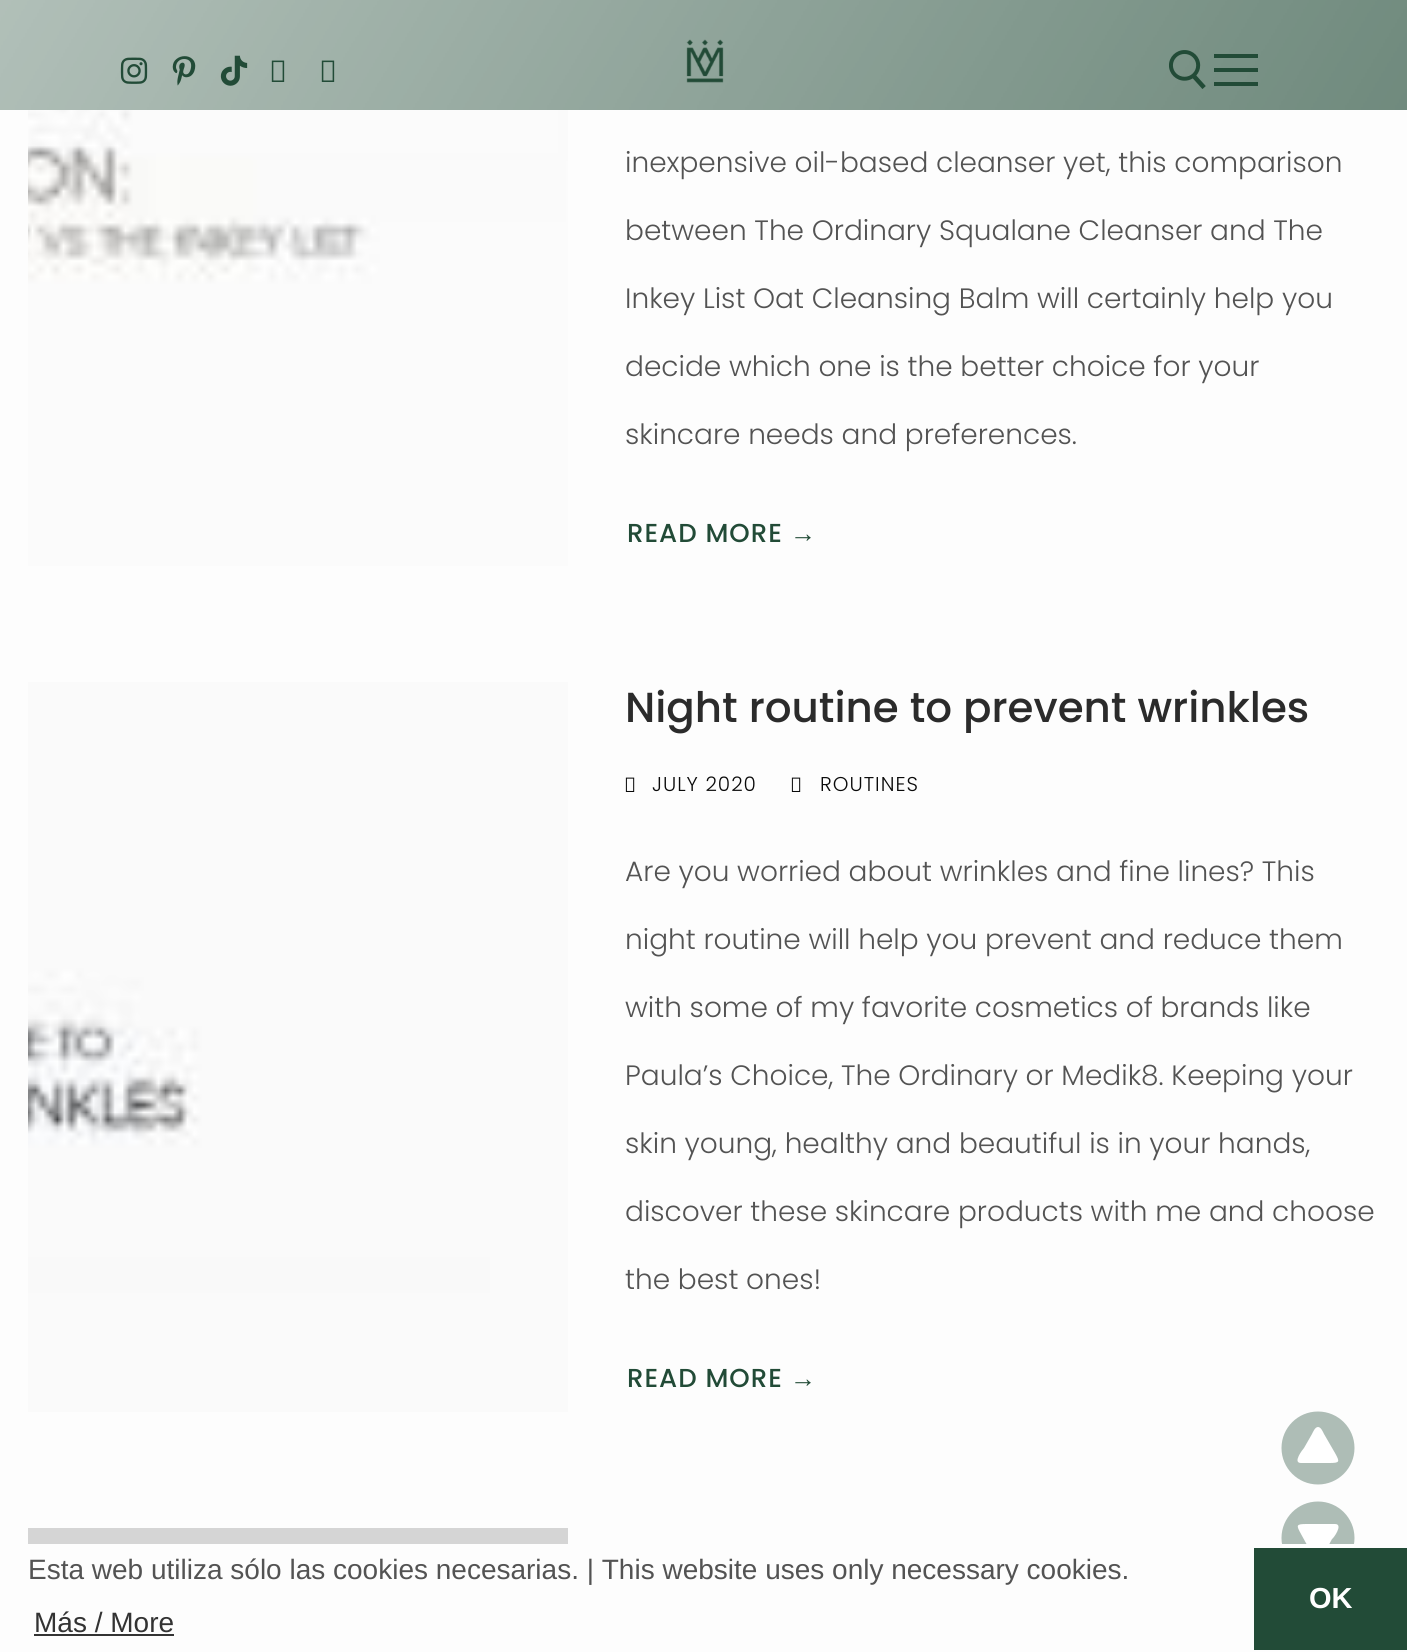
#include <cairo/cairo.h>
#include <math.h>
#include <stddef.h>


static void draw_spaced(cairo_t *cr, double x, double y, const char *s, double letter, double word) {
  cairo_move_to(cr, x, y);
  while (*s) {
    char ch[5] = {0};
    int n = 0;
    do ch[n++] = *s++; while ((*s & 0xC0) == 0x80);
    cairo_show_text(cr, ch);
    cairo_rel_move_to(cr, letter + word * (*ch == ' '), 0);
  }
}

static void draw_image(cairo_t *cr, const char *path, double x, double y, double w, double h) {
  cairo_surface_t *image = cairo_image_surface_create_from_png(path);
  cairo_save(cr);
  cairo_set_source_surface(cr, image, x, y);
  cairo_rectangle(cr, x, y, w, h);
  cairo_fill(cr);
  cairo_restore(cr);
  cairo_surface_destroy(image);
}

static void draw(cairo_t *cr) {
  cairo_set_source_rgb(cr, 253 / 255.0, 253 / 255.0, 253 / 255.0);
  cairo_paint(cr);
  draw_image(cr, "images/1.png", 0, 0, 1407, 110);
  draw_image(cr, "images/2.png", 120, 57, 28, 27);
  draw_image(cr, "images/3.png", 172, 56, 24, 30);
  draw_image(cr, "images/4.png", 220, 55, 28, 31);
  draw_image(cr, "images/5.png", 271, 60, 14, 22);
  draw_image(cr, "images/6.png", 321, 60, 14, 22);
  draw_image(cr, "images/7.png", 686, 39, 38, 44);
  draw_image(cr, "images/8.png", 1169, 50, 37, 39);
  cairo_set_source_rgb(cr, 34 / 255.0, 75 / 255.0, 55 / 255.0);
  cairo_rectangle(cr, 1214, 68, 44, 4);
  cairo_fill(cr);
  cairo_rectangle(cr, 1214, 54, 44, 4);
  cairo_fill(cr);
  cairo_rectangle(cr, 1214, 82, 44, 4);
  cairo_fill(cr);
  draw_image(cr, "images/9.png", 28, 110, 540, 456);
  draw_image(cr, "images/10.png", 28, 682, 540, 730);
  draw_image(cr, "images/11.png", 625, 777, 10, 15);
  draw_image(cr, "images/11.png", 791, 777, 10, 15);
  cairo_set_source_rgb(cr, 213 / 255.0, 213 / 255.0, 213 / 255.0);
  cairo_rectangle(cr, 28, 1528, 540, 16);
  cairo_fill(cr);
  cairo_set_source_rgb(cr, 174 / 255.0, 189 / 255.0, 182 / 255.0);
  cairo_arc(cr, 1318, 1448, 36.5, 0, 2 * M_PI);
  cairo_fill(cr);
  cairo_set_source_rgb(cr, 1, 1, 1);
  cairo_new_path(cr);
  cairo_move_to(cr, 1301, 1463);
  cairo_line_to(cr, 1329, 1463);
  cairo_curve_to(cr, 1340, 1463, 1340, 1462, 1335, 1453);
  cairo_line_to(cr, 1324, 1434);
  cairo_curve_to(cr, 1323, 1432, 1321, 1427, 1318, 1427);
  cairo_curve_to(cr, 1315, 1427, 1313, 1432, 1312, 1434);
  cairo_line_to(cr, 1304, 1448);
  cairo_curve_to(cr, 1303, 1449, 1292, 1463, 1301, 1463);
  cairo_close_path(cr);
  cairo_fill(cr);
  cairo_set_source_rgb(cr, 174 / 255.0, 189 / 255.0, 182 / 255.0);
  cairo_arc(cr, 1318, 1538, 36.5, 0, 2 * M_PI);
  cairo_fill(cr);
  cairo_set_source_rgb(cr, 1, 1, 1);
  cairo_new_path(cr);
  cairo_move_to(cr, 1335, 1524);
  cairo_line_to(cr, 1307, 1524);
  cairo_curve_to(cr, 1296, 1524, 1296, 1525, 1301, 1534);
  cairo_line_to(cr, 1312, 1554);
  cairo_curve_to(cr, 1313, 1556, 1315, 1561, 1318, 1561);
  cairo_curve_to(cr, 1321, 1561, 1323, 1556, 1324, 1554);
  cairo_line_to(cr, 1332, 1539);
  cairo_curve_to(cr, 1333, 1539, 1344, 1524, 1335, 1524);
  cairo_close_path(cr);
  cairo_fill(cr);
  cairo_rectangle(cr, 1282, 1544, 72, 31);
  cairo_fill(cr);
  cairo_set_source_rgb(cr, 51 / 255.0, 51 / 255.0, 51 / 255.0);
  cairo_rectangle(cr, 34, 1634, 140, 2);
  cairo_fill(cr);
  cairo_set_source_rgb(cr, 34 / 255.0, 75 / 255.0, 55 / 255.0);
  cairo_rectangle(cr, 1254, 1548, 153, 102);
  cairo_fill(cr);
  cairo_select_font_face(cr, "Poppins Light", CAIRO_FONT_SLANT_NORMAL, CAIRO_FONT_WEIGHT_NORMAL);
  cairo_set_font_size(cr, 28);
  cairo_set_source_rgb(cr, 83 / 255.0, 83 / 255.0, 83 / 255.0);
  cairo_move_to(cr, 625, 172);
  cairo_show_text(cr, "inexpensive oil-based cleanser yet, this comparison");
  cairo_move_to(cr, 625, 240);
  cairo_show_text(cr, "between The Ordinary Squalane Cleanser and The");
  cairo_move_to(cr, 625, 308);
  cairo_show_text(cr, "Inkey List Oat Cleansing Balm will certainly help you");
  cairo_move_to(cr, 625, 376);
  cairo_show_text(cr, "decide which one is the better choice for your");
  cairo_move_to(cr, 625, 444);
  cairo_show_text(cr, "skincare needs and preferences.");
  cairo_select_font_face(cr, "Poppins Medium", CAIRO_FONT_SLANT_NORMAL, CAIRO_FONT_WEIGHT_NORMAL);
  cairo_set_font_size(cr, 26);
  cairo_set_source_rgb(cr, 34 / 255.0, 75 / 255.0, 55 / 255.0);
  draw_spaced(cr, 627, 542, "READ MORE", 1, 0);
  cairo_select_font_face(cr, "Liberation Serif", CAIRO_FONT_SLANT_NORMAL, CAIRO_FONT_WEIGHT_NORMAL);
  draw_spaced(cr, 790, 542, "→", 1, 0);
  cairo_select_font_face(cr, "Poppins Medium", CAIRO_FONT_SLANT_NORMAL, CAIRO_FONT_WEIGHT_NORMAL);
  cairo_set_font_size(cr, 42);
  cairo_set_source_rgb(cr, 43 / 255.0, 43 / 255.0, 43 / 255.0);
  cairo_move_to(cr, 625, 722);
  cairo_show_text(cr, "Night routine to prevent wrinkles");
  cairo_select_font_face(cr, "Poppins Light", CAIRO_FONT_SLANT_NORMAL, CAIRO_FONT_WEIGHT_NORMAL);
  cairo_set_font_size(cr, 20);
  cairo_set_source_rgb(cr, 10 / 255.0, 10 / 255.0, 10 / 255.0);
  draw_spaced(cr, 652, 791, "JULY 2020", 1, 0);
  draw_spaced(cr, 820, 791, "ROUTINES", 1, 0);
  cairo_set_font_size(cr, 28);
  cairo_set_source_rgb(cr, 83 / 255.0, 83 / 255.0, 83 / 255.0);
  cairo_move_to(cr, 625, 881);
  cairo_show_text(cr, "Are you worried about wrinkles and fine lines? This");
  cairo_move_to(cr, 625, 949);
  cairo_show_text(cr, "night routine will help you prevent and reduce them");
  cairo_move_to(cr, 625, 1017);
  cairo_show_text(cr, "with some of my favorite cosmetics of brands like");
  cairo_move_to(cr, 625, 1085);
  cairo_show_text(cr, "Paula’s Choice, The Ordinary or Medik8. Keeping your");
  cairo_move_to(cr, 625, 1153);
  cairo_show_text(cr, "skin young, healthy and beautiful is in your hands,");
  cairo_move_to(cr, 625, 1221);
  cairo_show_text(cr, "discover these skincare products with me and choose");
  cairo_move_to(cr, 625, 1289);
  cairo_show_text(cr, "the best ones!");
  cairo_select_font_face(cr, "Poppins Medium", CAIRO_FONT_SLANT_NORMAL, CAIRO_FONT_WEIGHT_NORMAL);
  cairo_set_font_size(cr, 26);
  cairo_set_source_rgb(cr, 34 / 255.0, 75 / 255.0, 55 / 255.0);
  draw_spaced(cr, 627, 1387, "READ MORE", 1, 0);
  cairo_select_font_face(cr, "Liberation Serif", CAIRO_FONT_SLANT_NORMAL, CAIRO_FONT_WEIGHT_NORMAL);
  draw_spaced(cr, 790, 1387, "→", 1, 0);
  cairo_select_font_face(cr, "Liberation Sans", CAIRO_FONT_SLANT_NORMAL, CAIRO_FONT_WEIGHT_NORMAL);
  cairo_set_font_size(cr, 28);
  cairo_set_source_rgb(cr, 83 / 255.0, 83 / 255.0, 83 / 255.0);
  cairo_move_to(cr, 28, 1579);
  cairo_show_text(cr, "Esta web utiliza sólo las cookies necesarias. | This website uses only necessary cookies.");
  cairo_set_source_rgb(cr, 51 / 255.0, 51 / 255.0, 51 / 255.0);
  cairo_move_to(cr, 34, 1632);
  cairo_show_text(cr, "Más / More");
  cairo_select_font_face(cr, "Liberation Sans", CAIRO_FONT_SLANT_NORMAL, CAIRO_FONT_WEIGHT_BOLD);
  cairo_set_font_size(cr, 29);
  cairo_set_source_rgb(cr, 1, 1, 1);
  cairo_move_to(cr, 1309, 1608);
  cairo_show_text(cr, "OK");
}

int main(void) {
  cairo_surface_t *surface = cairo_image_surface_create(CAIRO_FORMAT_RGB24, 1407, 1652);
  cairo_t *cr = cairo_create(surface);
  cairo_font_options_t *options = cairo_font_options_create();
  cairo_font_options_set_hint_metrics(options, CAIRO_HINT_METRICS_OFF);
  cairo_font_options_set_hint_style(options, CAIRO_HINT_STYLE_NONE);
  cairo_set_font_options(cr, options);
  cairo_set_miter_limit(cr, 4);
  draw(cr);
  cairo_surface_write_to_png(surface, "out.png");
  cairo_font_options_destroy(options);
  cairo_destroy(cr);
  cairo_surface_destroy(surface);
  return 0;
}
